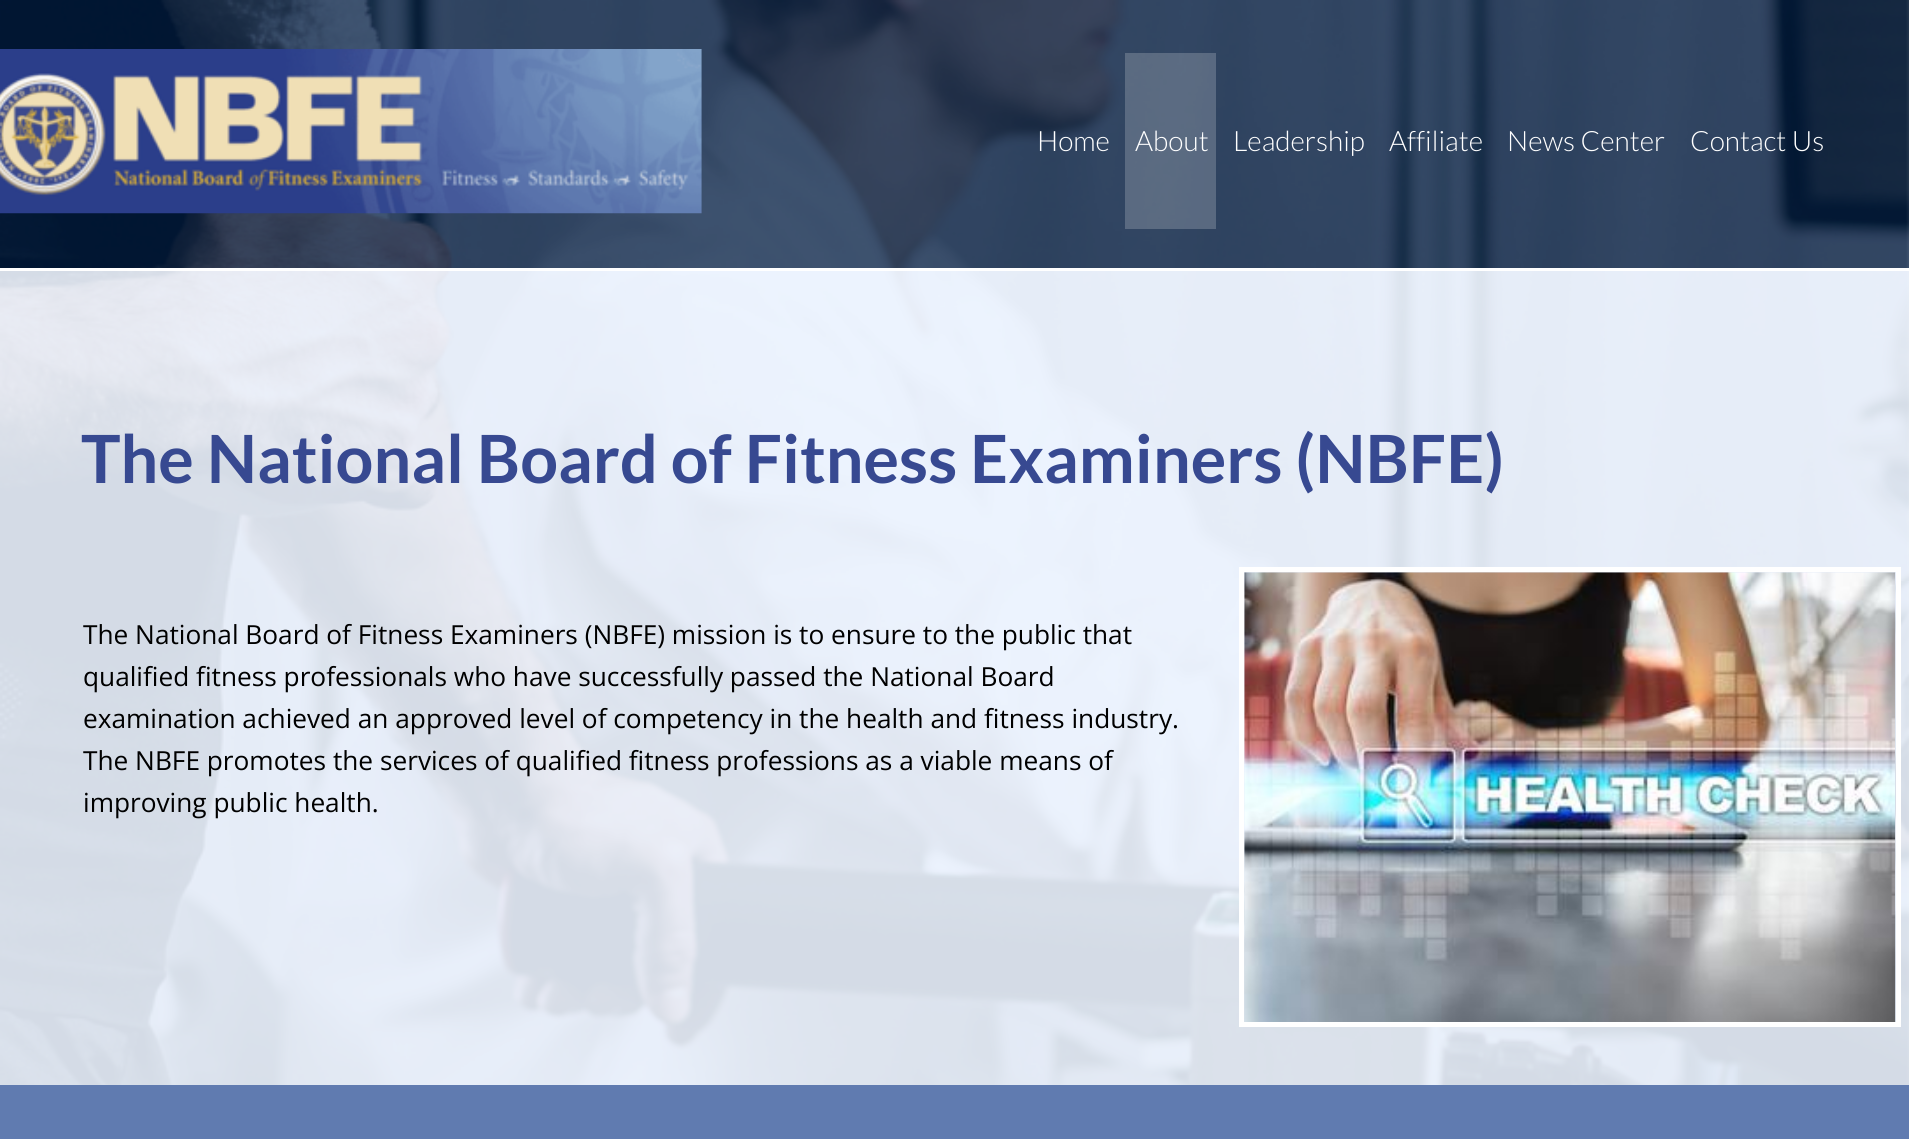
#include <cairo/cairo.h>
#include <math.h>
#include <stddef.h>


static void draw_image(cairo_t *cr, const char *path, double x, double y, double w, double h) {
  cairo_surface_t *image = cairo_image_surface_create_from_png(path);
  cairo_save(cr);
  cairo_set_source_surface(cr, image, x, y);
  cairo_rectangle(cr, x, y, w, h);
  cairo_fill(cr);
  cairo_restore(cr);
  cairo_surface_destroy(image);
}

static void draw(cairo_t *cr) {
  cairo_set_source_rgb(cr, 1, 1, 1);
  cairo_paint(cr);
  draw_image(cr, "images/1.png", 0, 0, 1909, 268);
  draw_image(cr, "images/2.png", 0, 49, 702, 165);
  cairo_set_source_rgba(cr, 1, 1, 1, 0.2);
  cairo_rectangle(cr, 1125, 53, 91, 176);
  cairo_fill(cr);
  draw_image(cr, "images/3.png", 0, 271, 1909, 814);
  cairo_rectangle(cr, 1241.5, 569.5, 657, 455);
  cairo_set_source_rgb(cr, 1, 1, 1);
  cairo_set_line_width(cr, 5);
  cairo_stroke(cr);
  draw_image(cr, "images/4.png", 1244, 572, 652, 450);
  cairo_set_source_rgb(cr, 96 / 255.0, 123 / 255.0, 176 / 255.0);
  cairo_rectangle(cr, 0, 1085, 1909, 54);
  cairo_fill(cr);
  cairo_select_font_face(cr, "Lato Light", CAIRO_FONT_SLANT_NORMAL, CAIRO_FONT_WEIGHT_NORMAL);
  cairo_set_font_size(cr, 28);
  cairo_set_source_rgb(cr, 1, 1, 1);
  cairo_move_to(cr, 1037, 151);
  cairo_show_text(cr, "Home");
  cairo_move_to(cr, 1135, 151);
  cairo_show_text(cr, "About");
  cairo_move_to(cr, 1233, 151);
  cairo_show_text(cr, "Leadership");
  cairo_move_to(cr, 1389, 151);
  cairo_show_text(cr, "Affiliate");
  cairo_move_to(cr, 1507, 151);
  cairo_show_text(cr, "News Center");
  cairo_move_to(cr, 1690, 151);
  cairo_show_text(cr, "Contact Us");
  cairo_select_font_face(cr, "Lato", CAIRO_FONT_SLANT_NORMAL, CAIRO_FONT_WEIGHT_BOLD);
  cairo_set_font_size(cr, 66.5);
  cairo_set_source_rgb(cr, 55 / 255.0, 73 / 255.0, 145 / 255.0);
  cairo_move_to(cr, 81, 483);
  cairo_show_text(cr, "The National Board of Fitness Examiners (NBFE)");
  cairo_select_font_face(cr, "Open Sans", CAIRO_FONT_SLANT_NORMAL, CAIRO_FONT_WEIGHT_NORMAL);
  cairo_set_font_size(cr, 26.25);
  cairo_set_source_rgb(cr, 0, 0, 0);
  cairo_move_to(cr, 83, 644);
  cairo_show_text(cr, "The National Board of Fitness Examiners (NBFE) mission is to ensure to the public that");
  cairo_move_to(cr, 83, 686);
  cairo_show_text(cr, "qualified fitness professionals who have successfully passed the National Board");
  cairo_move_to(cr, 83, 728);
  cairo_show_text(cr, "examination achieved an approved level of competency in the health and fitness industry.");
  cairo_move_to(cr, 83, 770);
  cairo_show_text(cr, "The NBFE promotes the services of qualified fitness professions as a viable means of");
  cairo_move_to(cr, 83, 812);
  cairo_show_text(cr, "improving public health.");
}

int main(void) {
  cairo_surface_t *surface = cairo_image_surface_create(CAIRO_FORMAT_RGB24, 1909, 1139);
  cairo_t *cr = cairo_create(surface);
  cairo_font_options_t *options = cairo_font_options_create();
  cairo_font_options_set_hint_metrics(options, CAIRO_HINT_METRICS_OFF);
  cairo_font_options_set_hint_style(options, CAIRO_HINT_STYLE_NONE);
  cairo_set_font_options(cr, options);
  cairo_set_miter_limit(cr, 4);
  draw(cr);
  cairo_surface_write_to_png(surface, "out.png");
  cairo_font_options_destroy(options);
  cairo_destroy(cr);
  cairo_surface_destroy(surface);
  return 0;
}
